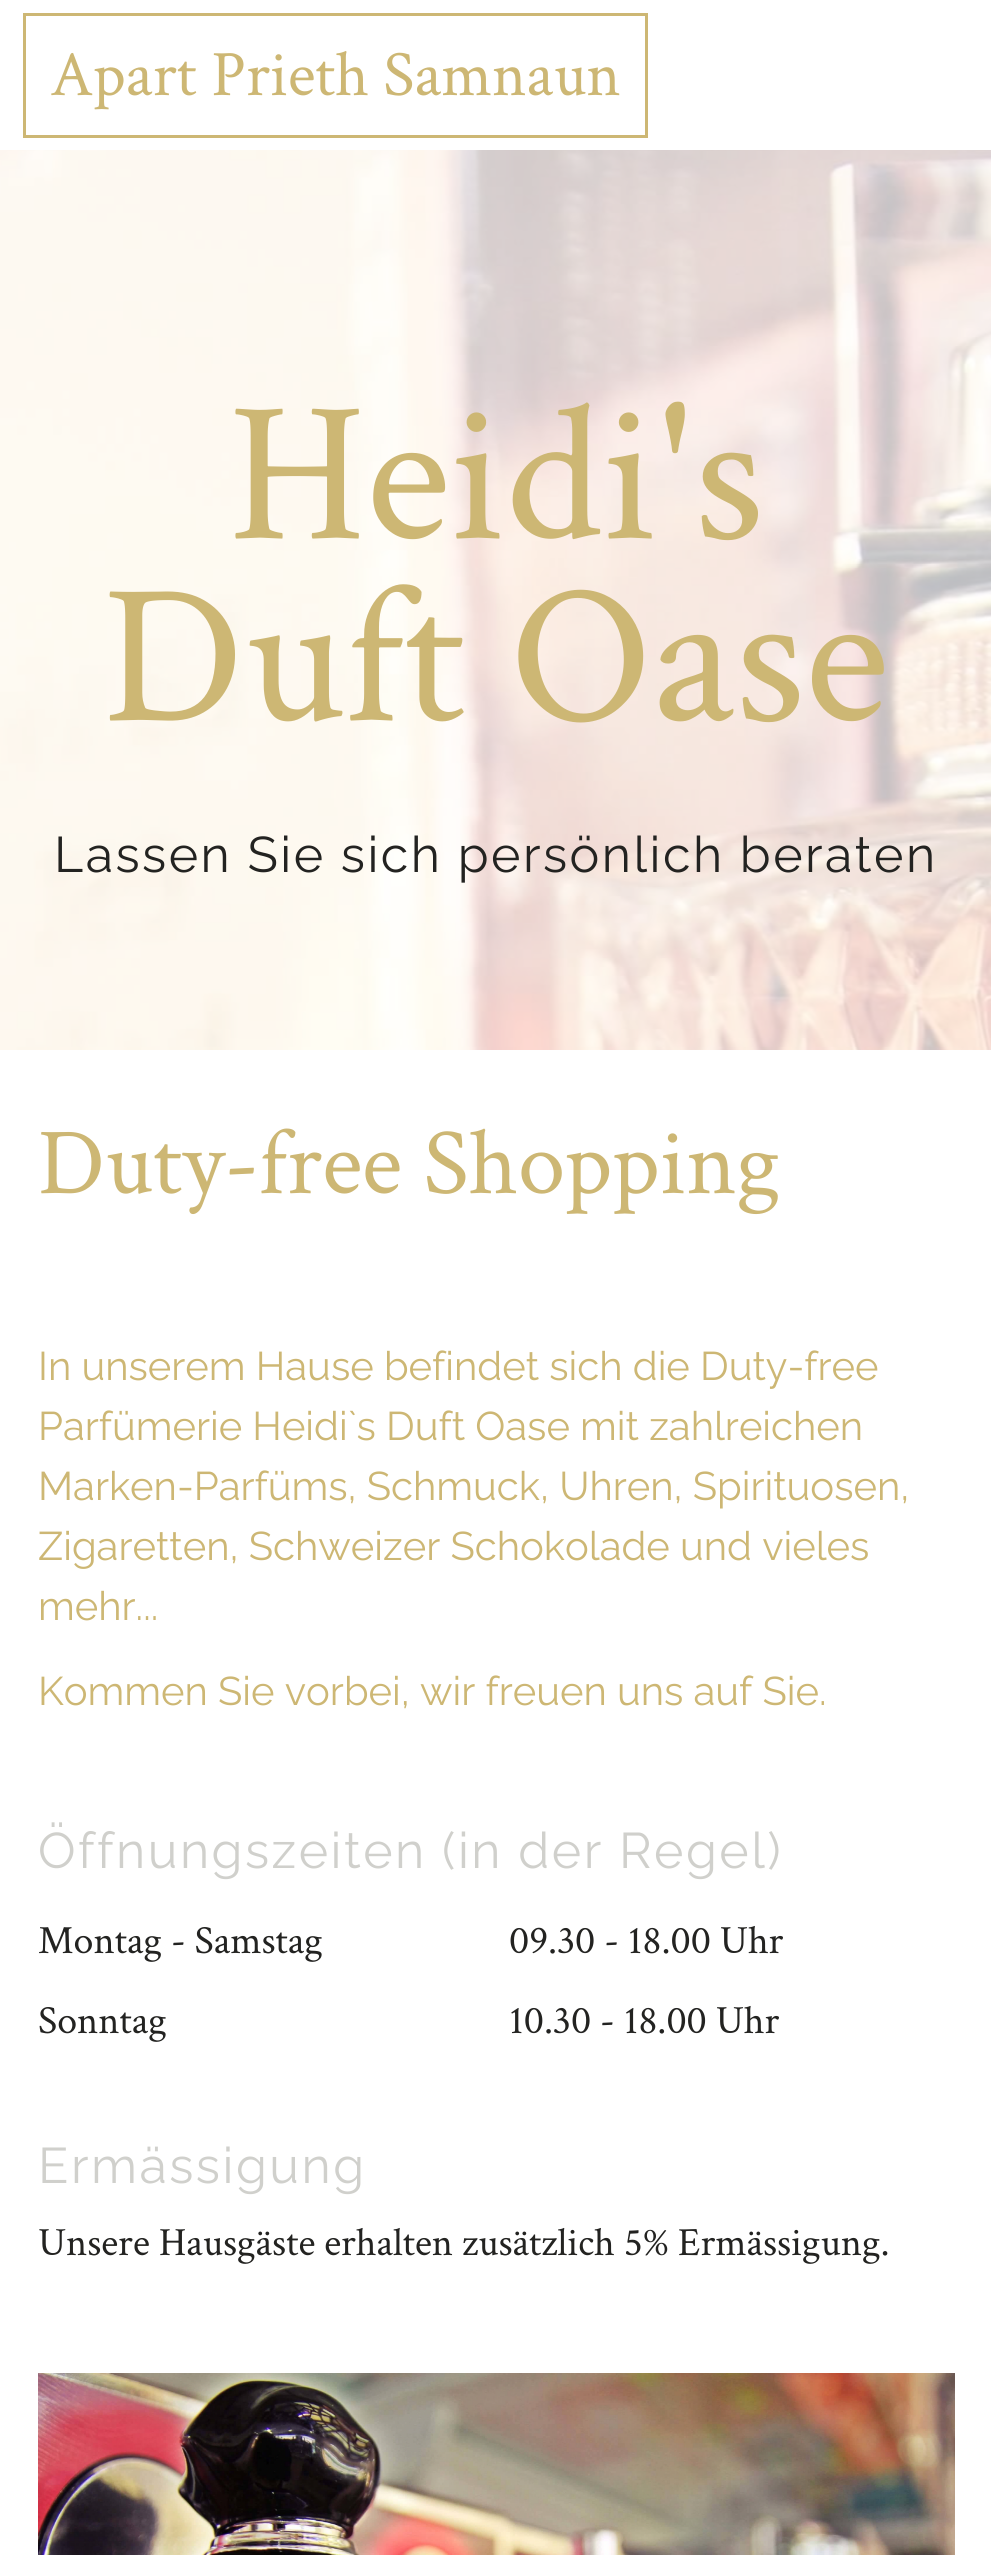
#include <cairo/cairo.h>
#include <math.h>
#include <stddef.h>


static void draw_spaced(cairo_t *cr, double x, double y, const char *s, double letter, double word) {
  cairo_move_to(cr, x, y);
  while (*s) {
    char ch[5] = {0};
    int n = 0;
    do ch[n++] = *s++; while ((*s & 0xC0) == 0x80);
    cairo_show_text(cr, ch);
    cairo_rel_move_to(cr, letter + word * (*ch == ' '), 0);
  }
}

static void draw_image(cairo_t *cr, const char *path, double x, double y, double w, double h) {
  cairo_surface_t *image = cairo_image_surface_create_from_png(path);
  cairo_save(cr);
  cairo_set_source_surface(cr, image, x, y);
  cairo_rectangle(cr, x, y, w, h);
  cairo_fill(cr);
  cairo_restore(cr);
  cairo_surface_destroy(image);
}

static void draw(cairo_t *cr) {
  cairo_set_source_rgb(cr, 1, 1, 1);
  cairo_paint(cr);
  cairo_rectangle(cr, 24.5, 14.5, 622, 122);
  cairo_set_source_rgb(cr, 205 / 255.0, 183 / 255.0, 116 / 255.0);
  cairo_set_line_width(cr, 3);
  cairo_stroke(cr);
  draw_image(cr, "images/1.png", 0, 150, 991, 900);
  draw_image(cr, "images/2.png", 38, 2373, 917, 182);
  cairo_select_font_face(cr, "Crimson Text", CAIRO_FONT_SLANT_NORMAL, CAIRO_FONT_WEIGHT_NORMAL);
  cairo_set_font_size(cr, 65);
  cairo_move_to(cr, 50, 95);
  cairo_show_text(cr, "Apart Prieth Samnaun");
  cairo_set_font_size(cr, 200);
  cairo_move_to(cr, 228, 538);
  cairo_show_text(cr, "Heidi's");
  cairo_move_to(cr, 103, 720);
  cairo_show_text(cr, "Duft Oase");
  cairo_select_font_face(cr, "Raleway", CAIRO_FONT_SLANT_NORMAL, CAIRO_FONT_WEIGHT_NORMAL);
  cairo_set_font_size(cr, 50);
  cairo_set_source_rgb(cr, 35 / 255.0, 35 / 255.0, 33 / 255.0);
  draw_spaced(cr, 54, 872, "Lassen Sie sich persönlich beraten", 2.5, 0);
  cairo_select_font_face(cr, "Crimson Text", CAIRO_FONT_SLANT_NORMAL, CAIRO_FONT_WEIGHT_NORMAL);
  cairo_set_font_size(cr, 95);
  cairo_set_source_rgb(cr, 205 / 255.0, 183 / 255.0, 116 / 255.0);
  cairo_move_to(cr, 38, 1193);
  cairo_show_text(cr, "Duty-free Shopping");
  cairo_select_font_face(cr, "Raleway", CAIRO_FONT_SLANT_NORMAL, CAIRO_FONT_WEIGHT_NORMAL);
  cairo_set_font_size(cr, 40);
  cairo_move_to(cr, 38, 1380);
  cairo_show_text(cr, "In unserem Hause befindet sich die Duty-free");
  cairo_move_to(cr, 38, 1440);
  cairo_show_text(cr, "Parfümerie Heidi`s Duft Oase mit zahlreichen");
  cairo_move_to(cr, 38, 1500);
  cairo_show_text(cr, "Marken-Parfüms, Schmuck, Uhren, Spirituosen,");
  cairo_move_to(cr, 38, 1560);
  cairo_show_text(cr, "Zigaretten, Schweizer Schokolade und vieles");
  cairo_move_to(cr, 38, 1620);
  cairo_show_text(cr, "mehr...");
  cairo_move_to(cr, 38, 1705);
  cairo_show_text(cr, "Kommen Sie vorbei, wir freuen uns auf Sie.");
  cairo_set_font_size(cr, 50);
  cairo_set_source_rgb(cr, 208 / 255.0, 208 / 255.0, 204 / 255.0);
  draw_spaced(cr, 38, 1868, "Öffnungszeiten (in der Regel)", 2.5, 0);
  cairo_select_font_face(cr, "Crimson Text", CAIRO_FONT_SLANT_NORMAL, CAIRO_FONT_WEIGHT_NORMAL);
  cairo_set_font_size(cr, 40);
  cairo_set_source_rgb(cr, 35 / 255.0, 35 / 255.0, 33 / 255.0);
  cairo_move_to(cr, 38, 1953);
  cairo_show_text(cr, "Montag - Samstag");
  cairo_move_to(cr, 509, 1953);
  cairo_show_text(cr, "09.30 - 18.00 Uhr");
  cairo_move_to(cr, 38, 2033);
  cairo_show_text(cr, "Sonntag");
  cairo_move_to(cr, 509, 2033);
  cairo_show_text(cr, "10.30 - 18.00 Uhr");
  cairo_select_font_face(cr, "Raleway", CAIRO_FONT_SLANT_NORMAL, CAIRO_FONT_WEIGHT_NORMAL);
  cairo_set_font_size(cr, 50);
  cairo_set_source_rgb(cr, 208 / 255.0, 208 / 255.0, 204 / 255.0);
  draw_spaced(cr, 38, 2183, "Ermässigung", 2.5, 0);
  cairo_select_font_face(cr, "Crimson Text", CAIRO_FONT_SLANT_NORMAL, CAIRO_FONT_WEIGHT_NORMAL);
  cairo_set_font_size(cr, 40);
  cairo_set_source_rgb(cr, 35 / 255.0, 35 / 255.0, 33 / 255.0);
  cairo_move_to(cr, 38, 2255);
  cairo_show_text(cr, "Unsere Hausgäste erhalten zusätzlich 5% Ermässigung.");
}

int main(void) {
  cairo_surface_t *surface = cairo_image_surface_create(CAIRO_FORMAT_RGB24, 991, 2555);
  cairo_t *cr = cairo_create(surface);
  cairo_font_options_t *options = cairo_font_options_create();
  cairo_font_options_set_hint_metrics(options, CAIRO_HINT_METRICS_OFF);
  cairo_font_options_set_hint_style(options, CAIRO_HINT_STYLE_NONE);
  cairo_set_font_options(cr, options);
  cairo_set_miter_limit(cr, 4);
  draw(cr);
  cairo_surface_write_to_png(surface, "out.png");
  cairo_font_options_destroy(options);
  cairo_destroy(cr);
  cairo_surface_destroy(surface);
  return 0;
}
